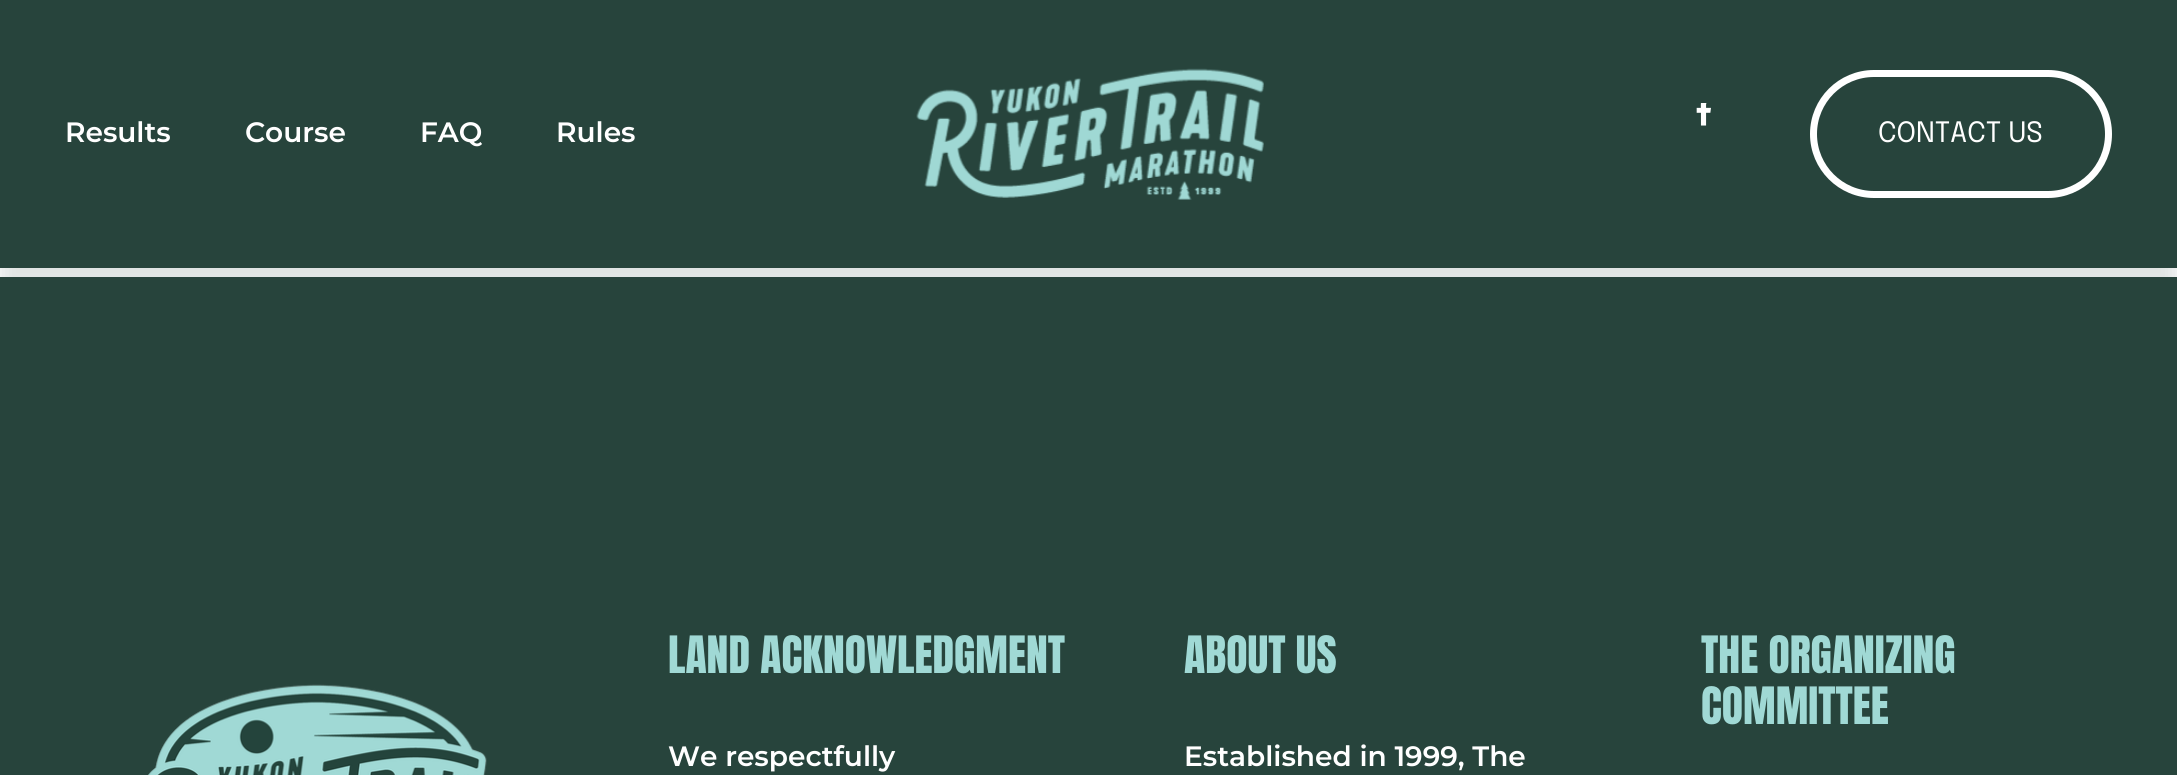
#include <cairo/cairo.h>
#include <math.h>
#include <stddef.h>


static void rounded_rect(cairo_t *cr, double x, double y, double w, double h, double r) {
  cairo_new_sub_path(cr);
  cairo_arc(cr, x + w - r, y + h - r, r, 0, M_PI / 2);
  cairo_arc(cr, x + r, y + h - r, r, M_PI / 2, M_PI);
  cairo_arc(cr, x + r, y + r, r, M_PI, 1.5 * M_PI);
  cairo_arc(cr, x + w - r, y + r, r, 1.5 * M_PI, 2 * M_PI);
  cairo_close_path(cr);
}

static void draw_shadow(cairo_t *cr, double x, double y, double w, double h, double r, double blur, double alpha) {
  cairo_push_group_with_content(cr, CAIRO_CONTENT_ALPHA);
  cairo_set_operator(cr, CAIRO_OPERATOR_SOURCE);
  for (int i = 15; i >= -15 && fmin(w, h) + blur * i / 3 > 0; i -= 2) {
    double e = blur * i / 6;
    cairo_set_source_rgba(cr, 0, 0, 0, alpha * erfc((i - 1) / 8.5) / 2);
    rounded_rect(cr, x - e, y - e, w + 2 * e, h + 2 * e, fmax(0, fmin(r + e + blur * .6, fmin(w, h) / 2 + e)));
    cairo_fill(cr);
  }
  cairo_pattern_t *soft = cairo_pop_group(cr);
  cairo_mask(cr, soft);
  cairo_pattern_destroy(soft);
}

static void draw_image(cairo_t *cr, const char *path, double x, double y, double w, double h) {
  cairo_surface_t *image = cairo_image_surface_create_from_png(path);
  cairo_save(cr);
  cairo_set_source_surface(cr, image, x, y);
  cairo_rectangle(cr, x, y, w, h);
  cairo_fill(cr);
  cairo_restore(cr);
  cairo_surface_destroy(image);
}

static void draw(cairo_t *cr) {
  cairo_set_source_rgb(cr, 1, 1, 1);
  cairo_paint(cr);
  cairo_set_source_rgb(cr, 39 / 255.0, 68 / 255.0, 60 / 255.0);
  cairo_rectangle(cr, 0, 0, 2177, 268);
  cairo_fill(cr);
  cairo_rectangle(cr, 0, 277, 2177, 498);
  cairo_fill(cr);
  cairo_save(cr);
  cairo_set_fill_rule(cr, CAIRO_FILL_RULE_EVEN_ODD);
  cairo_new_path(cr);
  cairo_move_to(cr, 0, 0);
  cairo_line_to(cr, 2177, 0);
  cairo_line_to(cr, 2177, 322);
  cairo_line_to(cr, 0, 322);
  cairo_close_path(cr);
  cairo_move_to(cr, 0, 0);
  cairo_line_to(cr, 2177, 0);
  cairo_line_to(cr, 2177, 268);
  cairo_line_to(cr, 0, 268);
  cairo_close_path(cr);
  cairo_clip(cr);
  cairo_set_source_rgb(cr, 39 / 255.0, 68 / 255.0, 60 / 255.0);
  draw_shadow(cr, 0, 21, 2177, 268, 0, 10.5, 0.15);
  cairo_restore(cr);
  draw_image(cr, "images/1.png", 916, 68, 348, 132);
  draw_image(cr, "images/2.png", 1696, 103, 15, 23);
  rounded_rect(cr, 1813.5, 73.5, 295, 121, 60.5);
  cairo_set_source_rgb(cr, 1, 1, 1);
  cairo_set_line_width(cr, 7);
  cairo_stroke(cr);
  draw_image(cr, "images/3.png", 148, 684, 339, 91);
  cairo_select_font_face(cr, "Montserrat SemiBold", CAIRO_FONT_SLANT_NORMAL, CAIRO_FONT_WEIGHT_NORMAL);
  cairo_set_font_size(cr, 28);
  cairo_move_to(cr, 65, 142);
  cairo_show_text(cr, "Results");
  cairo_move_to(cr, 245, 142);
  cairo_show_text(cr, "Course");
  cairo_move_to(cr, 420, 142);
  cairo_show_text(cr, "FAQ");
  cairo_move_to(cr, 556, 142);
  cairo_show_text(cr, "Rules");
  cairo_select_font_face(cr, "Epilogue", CAIRO_FONT_SLANT_NORMAL, CAIRO_FONT_WEIGHT_NORMAL);
  cairo_move_to(cr, 1878, 142);
  cairo_show_text(cr, "CONTACT US");
  cairo_select_font_face(cr, "Anton", CAIRO_FONT_SLANT_NORMAL, CAIRO_FONT_WEIGHT_NORMAL);
  cairo_set_font_size(cr, 43.75);
  cairo_set_source_rgb(cr, 160 / 255.0, 217 / 255.0, 213 / 255.0);
  cairo_move_to(cr, 668, 673);
  cairo_show_text(cr, "LAND ACKNOWLEDGMENT");
  cairo_select_font_face(cr, "Montserrat SemiBold", CAIRO_FONT_SLANT_NORMAL, CAIRO_FONT_WEIGHT_NORMAL);
  cairo_set_font_size(cr, 28);
  cairo_set_source_rgb(cr, 1, 1, 1);
  cairo_move_to(cr, 668, 766);
  cairo_show_text(cr, "We respectfully");
  cairo_select_font_face(cr, "Anton", CAIRO_FONT_SLANT_NORMAL, CAIRO_FONT_WEIGHT_NORMAL);
  cairo_set_font_size(cr, 43.75);
  cairo_set_source_rgb(cr, 160 / 255.0, 217 / 255.0, 213 / 255.0);
  cairo_move_to(cr, 1184, 673);
  cairo_show_text(cr, "ABOUT US");
  cairo_select_font_face(cr, "Montserrat SemiBold", CAIRO_FONT_SLANT_NORMAL, CAIRO_FONT_WEIGHT_NORMAL);
  cairo_set_font_size(cr, 28);
  cairo_set_source_rgb(cr, 1, 1, 1);
  cairo_move_to(cr, 1184, 766);
  cairo_show_text(cr, "Established in 1999, The");
  cairo_select_font_face(cr, "Anton", CAIRO_FONT_SLANT_NORMAL, CAIRO_FONT_WEIGHT_NORMAL);
  cairo_set_font_size(cr, 43.75);
  cairo_set_source_rgb(cr, 160 / 255.0, 217 / 255.0, 213 / 255.0);
  cairo_move_to(cr, 1701, 673);
  cairo_show_text(cr, "THE ORGANIZING");
  cairo_move_to(cr, 1701, 724);
  cairo_show_text(cr, "COMMITTEE");
}

int main(void) {
  cairo_surface_t *surface = cairo_image_surface_create(CAIRO_FORMAT_RGB24, 2177, 775);
  cairo_t *cr = cairo_create(surface);
  cairo_font_options_t *options = cairo_font_options_create();
  cairo_font_options_set_hint_metrics(options, CAIRO_HINT_METRICS_OFF);
  cairo_font_options_set_hint_style(options, CAIRO_HINT_STYLE_NONE);
  cairo_set_font_options(cr, options);
  cairo_set_miter_limit(cr, 4);
  draw(cr);
  cairo_surface_write_to_png(surface, "out.png");
  cairo_font_options_destroy(options);
  cairo_destroy(cr);
  cairo_surface_destroy(surface);
  return 0;
}
